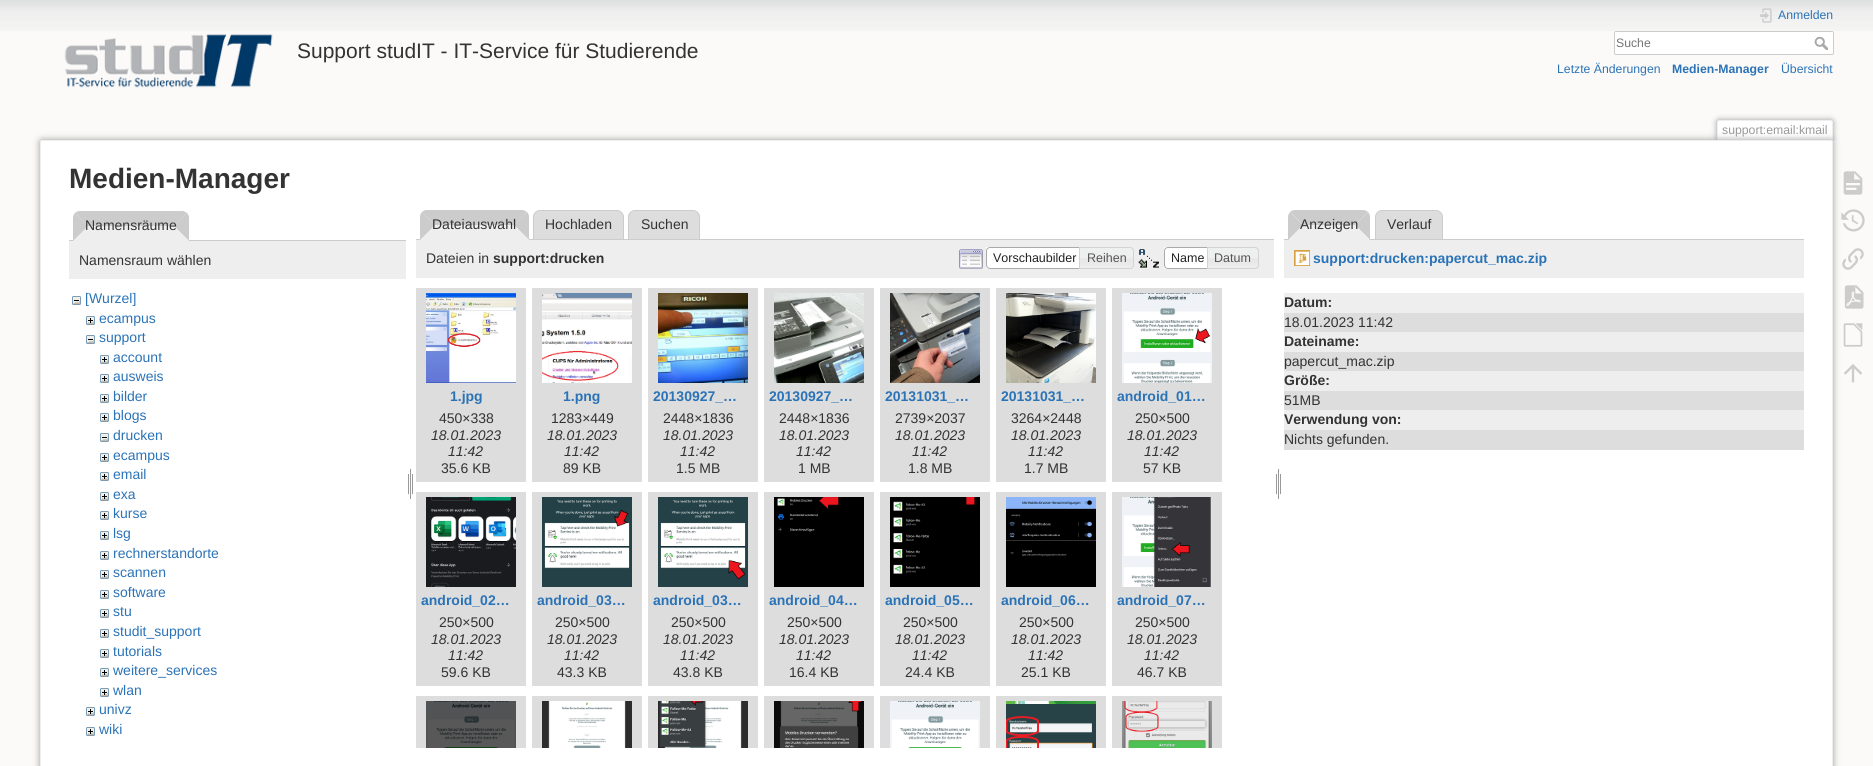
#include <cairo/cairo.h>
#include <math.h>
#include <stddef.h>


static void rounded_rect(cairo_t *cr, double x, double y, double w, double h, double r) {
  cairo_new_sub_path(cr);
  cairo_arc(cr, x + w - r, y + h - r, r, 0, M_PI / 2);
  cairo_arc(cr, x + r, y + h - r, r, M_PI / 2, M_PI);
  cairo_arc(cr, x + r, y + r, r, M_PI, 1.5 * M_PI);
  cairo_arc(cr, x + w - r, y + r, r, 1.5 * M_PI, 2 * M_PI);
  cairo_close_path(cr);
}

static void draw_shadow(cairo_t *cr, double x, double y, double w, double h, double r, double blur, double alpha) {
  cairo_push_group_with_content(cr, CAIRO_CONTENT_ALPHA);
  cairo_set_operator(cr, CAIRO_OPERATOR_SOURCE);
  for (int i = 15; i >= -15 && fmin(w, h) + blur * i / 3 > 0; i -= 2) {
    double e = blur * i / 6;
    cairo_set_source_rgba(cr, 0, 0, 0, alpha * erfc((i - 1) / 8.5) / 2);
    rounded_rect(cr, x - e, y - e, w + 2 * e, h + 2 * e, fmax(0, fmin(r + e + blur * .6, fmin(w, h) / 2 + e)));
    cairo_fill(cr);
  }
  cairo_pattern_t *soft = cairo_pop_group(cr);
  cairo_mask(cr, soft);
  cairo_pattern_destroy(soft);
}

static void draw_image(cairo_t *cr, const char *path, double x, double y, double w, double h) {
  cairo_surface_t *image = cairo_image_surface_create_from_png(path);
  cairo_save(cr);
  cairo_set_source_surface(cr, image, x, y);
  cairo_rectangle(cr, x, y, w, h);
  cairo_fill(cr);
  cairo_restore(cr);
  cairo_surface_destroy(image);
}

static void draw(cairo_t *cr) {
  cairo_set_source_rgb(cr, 251 / 255.0, 250 / 255.0, 249 / 255.0);
  cairo_paint(cr);
  draw_image(cr, "images/1.png", 0, 0, 1873, 31);
  draw_image(cr, "images/2.png", 64, 34, 209, 54);
  draw_image(cr, "images/3.png", 1760, 8, 12, 15);
  cairo_set_source_rgb(cr, 1, 1, 1);
  rounded_rect(cr, 1614.5, 31.5, 219, 23, 1.5);
  cairo_fill_preserve(cr);
  cairo_set_source_rgb(cr, 204 / 255.0, 204 / 255.0, 204 / 255.0);
  cairo_set_line_width(cr, 1);
  cairo_stroke(cr);
  draw_image(cr, "images/4.png", 1814, 36, 14, 14);
  cairo_save(cr);
  cairo_rectangle(cr, 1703, 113, 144, 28);
  cairo_clip(cr);
  cairo_set_source_rgb(cr, 153 / 255.0, 153 / 255.0, 153 / 255.0);
  draw_shadow(cr, 1717, 120, 116, 21, 2, 3, 1);
  cairo_restore(cr);
  cairo_set_source_rgb(cr, 1, 1, 1);
  cairo_new_path(cr);
  cairo_move_to(cr, 1719, 121);
  cairo_line_to(cr, 1831, 121);
  cairo_curve_to(cr, 1831.5, 121, 1832, 121.5, 1832, 122);
  cairo_line_to(cr, 1832, 141);
  cairo_line_to(cr, 1718, 141);
  cairo_line_to(cr, 1718, 122);
  cairo_curve_to(cr, 1718, 121.5, 1718.5, 121, 1719, 121);
  cairo_close_path(cr);
  cairo_fill(cr);
  cairo_set_source_rgb(cr, 238 / 255.0, 238 / 255.0, 238 / 255.0);
  cairo_rectangle(cr, 1718, 120, 114, 1);
  cairo_fill(cr);
  cairo_rectangle(cr, 1832, 121, 1, 20);
  cairo_fill(cr);
  cairo_rectangle(cr, 1717, 121, 1, 20);
  cairo_fill(cr);
  cairo_set_source_rgb(cr, 153 / 255.0, 153 / 255.0, 153 / 255.0);
  draw_shadow(cr, 40, 140, 1793, 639, 2, 3.5, 1);
  cairo_set_source_rgb(cr, 1, 1, 1);
  rounded_rect(cr, 40.5, 140.5, 1792, 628, 1.5);
  cairo_fill_preserve(cr);
  cairo_set_source_rgb(cr, 238 / 255.0, 238 / 255.0, 238 / 255.0);
  cairo_stroke(cr);
  cairo_set_source_rgb(cr, 204 / 255.0, 204 / 255.0, 204 / 255.0);
  cairo_rectangle(cr, 69, 240, 337, 1);
  cairo_fill(cr);
  cairo_set_source_rgb(cr, 238 / 255.0, 238 / 255.0, 238 / 255.0);
  cairo_new_path(cr);
  cairo_move_to(cr, 80, 211);
  cairo_line_to(cr, 182, 211);
  cairo_curve_to(cr, 186, 211, 189, 214, 189, 218);
  cairo_line_to(cr, 189, 241);
  cairo_line_to(cr, 73, 241);
  cairo_line_to(cr, 73, 218);
  cairo_curve_to(cr, 73, 214, 76, 211, 80, 211);
  cairo_close_path(cr);
  cairo_fill(cr);
  cairo_set_source_rgb(cr, 204 / 255.0, 204 / 255.0, 204 / 255.0);
  cairo_new_path(cr);
  cairo_move_to(cr, 80, 211);
  cairo_line_to(cr, 183, 211);
  cairo_line_to(cr, 187, 213);
  cairo_line_to(cr, 174, 226);
  cairo_line_to(cr, 88, 226);
  cairo_line_to(cr, 75, 213);
  cairo_curve_to(cr, 76, 212, 78, 211, 80, 211);
  cairo_close_path(cr);
  cairo_fill(cr);
  cairo_new_path(cr);
  cairo_move_to(cr, 187, 213);
  cairo_line_to(cr, 174, 226);
  cairo_line_to(cr, 189, 241);
  cairo_line_to(cr, 189, 218);
  cairo_curve_to(cr, 189, 216, 188, 214, 187, 213);
  cairo_close_path(cr);
  cairo_fill(cr);
  cairo_set_source_rgb(cr, 238 / 255.0, 238 / 255.0, 238 / 255.0);
  cairo_new_path(cr);
  cairo_move_to(cr, 189, 241);
  cairo_line_to(cr, 174, 226);
  cairo_line_to(cr, 88, 226);
  cairo_line_to(cr, 73, 241);
  cairo_close_path(cr);
  cairo_fill(cr);
  cairo_set_source_rgb(cr, 204 / 255.0, 204 / 255.0, 204 / 255.0);
  cairo_new_path(cr);
  cairo_move_to(cr, 73, 241);
  cairo_line_to(cr, 73, 218);
  cairo_curve_to(cr, 73, 216, 74, 214, 75, 213);
  cairo_line_to(cr, 88, 226);
  cairo_close_path(cr);
  cairo_fill(cr);
  cairo_set_source_rgb(cr, 238 / 255.0, 238 / 255.0, 238 / 255.0);
  cairo_rectangle(cr, 69, 241, 337, 38);
  cairo_fill(cr);
  draw_image(cr, "images/5.png", 72, 296, 9, 9);
  draw_image(cr, "images/6.png", 86, 316, 9, 9);
  draw_image(cr, "images/5.png", 86, 335, 9, 9);
  draw_image(cr, "images/6.png", 100, 355, 9, 9);
  draw_image(cr, "images/6.png", 100, 374, 9, 9);
  draw_image(cr, "images/6.png", 100, 394, 9, 9);
  draw_image(cr, "images/6.png", 100, 413, 9, 9);
  draw_image(cr, "images/5.png", 100, 433, 9, 9);
  draw_image(cr, "images/6.png", 100, 453, 9, 9);
  draw_image(cr, "images/6.png", 100, 472, 9, 9);
  draw_image(cr, "images/6.png", 100, 492, 9, 9);
  draw_image(cr, "images/6.png", 100, 511, 9, 9);
  draw_image(cr, "images/6.png", 100, 531, 9, 9);
  draw_image(cr, "images/6.png", 100, 551, 9, 9);
  draw_image(cr, "images/6.png", 100, 570, 9, 9);
  draw_image(cr, "images/6.png", 100, 590, 9, 9);
  draw_image(cr, "images/6.png", 100, 609, 9, 9);
  draw_image(cr, "images/6.png", 100, 629, 9, 9);
  draw_image(cr, "images/6.png", 100, 649, 9, 9);
  draw_image(cr, "images/6.png", 100, 668, 9, 9);
  draw_image(cr, "images/6.png", 100, 688, 9, 9);
  draw_image(cr, "images/6.png", 86, 707, 9, 9);
  draw_image(cr, "images/6.png", 86, 727, 9, 9);
  draw_image(cr, "images/7.png", 408, 468, 5, 31);
  cairo_set_source_rgb(cr, 221 / 255.0, 221 / 255.0, 221 / 255.0);
  cairo_new_path(cr);
  cairo_move_to(cr, 540, 210.5);
  cairo_line_to(cr, 617, 210.5);
  cairo_curve_to(cr, 620.5, 210.5, 623.5, 213.5, 623.5, 217);
  cairo_line_to(cr, 623.5, 239.5);
  cairo_line_to(cr, 533.5, 239.5);
  cairo_line_to(cr, 533.5, 217);
  cairo_curve_to(cr, 533.5, 213.5, 536.5, 210.5, 540, 210.5);
  cairo_close_path(cr);
  cairo_fill_preserve(cr);
  cairo_set_source_rgb(cr, 204 / 255.0, 204 / 255.0, 204 / 255.0);
  cairo_stroke(cr);
  cairo_set_source_rgb(cr, 221 / 255.0, 221 / 255.0, 221 / 255.0);
  cairo_new_path(cr);
  cairo_move_to(cr, 635, 210.5);
  cairo_line_to(cr, 693, 210.5);
  cairo_curve_to(cr, 696.5, 210.5, 699.5, 213.5, 699.5, 217);
  cairo_line_to(cr, 699.5, 239.5);
  cairo_line_to(cr, 628.5, 239.5);
  cairo_line_to(cr, 628.5, 217);
  cairo_curve_to(cr, 628.5, 213.5, 631.5, 210.5, 635, 210.5);
  cairo_close_path(cr);
  cairo_fill_preserve(cr);
  cairo_set_source_rgb(cr, 204 / 255.0, 204 / 255.0, 204 / 255.0);
  cairo_stroke(cr);
  cairo_rectangle(cr, 416, 239, 858, 1);
  cairo_fill(cr);
  cairo_set_source_rgb(cr, 238 / 255.0, 238 / 255.0, 238 / 255.0);
  cairo_new_path(cr);
  cairo_move_to(cr, 427, 210);
  cairo_line_to(cr, 522, 210);
  cairo_curve_to(cr, 526, 210, 529, 213, 529, 217);
  cairo_line_to(cr, 529, 240);
  cairo_line_to(cr, 420, 240);
  cairo_line_to(cr, 420, 217);
  cairo_curve_to(cr, 420, 213, 423, 210, 427, 210);
  cairo_close_path(cr);
  cairo_fill(cr);
  cairo_set_source_rgb(cr, 204 / 255.0, 204 / 255.0, 204 / 255.0);
  cairo_new_path(cr);
  cairo_move_to(cr, 427, 210);
  cairo_line_to(cr, 523, 210);
  cairo_line_to(cr, 527, 212);
  cairo_line_to(cr, 514, 225);
  cairo_line_to(cr, 435, 225);
  cairo_line_to(cr, 422, 212);
  cairo_curve_to(cr, 423, 211, 425, 210, 427, 210);
  cairo_close_path(cr);
  cairo_fill(cr);
  cairo_new_path(cr);
  cairo_move_to(cr, 527, 212);
  cairo_line_to(cr, 514, 225);
  cairo_line_to(cr, 529, 240);
  cairo_line_to(cr, 529, 217);
  cairo_curve_to(cr, 529, 215, 528, 213, 527, 212);
  cairo_close_path(cr);
  cairo_fill(cr);
  cairo_set_source_rgb(cr, 238 / 255.0, 238 / 255.0, 238 / 255.0);
  cairo_new_path(cr);
  cairo_move_to(cr, 529, 240);
  cairo_line_to(cr, 514, 225);
  cairo_line_to(cr, 435, 225);
  cairo_line_to(cr, 420, 240);
  cairo_close_path(cr);
  cairo_fill(cr);
  cairo_set_source_rgb(cr, 204 / 255.0, 204 / 255.0, 204 / 255.0);
  cairo_new_path(cr);
  cairo_move_to(cr, 420, 240);
  cairo_line_to(cr, 420, 217);
  cairo_curve_to(cr, 420, 215, 421, 213, 422, 212);
  cairo_line_to(cr, 435, 225);
  cairo_close_path(cr);
  cairo_fill(cr);
  cairo_set_source_rgb(cr, 238 / 255.0, 238 / 255.0, 238 / 255.0);
  cairo_rectangle(cr, 416, 240, 858, 38);
  cairo_fill(cr);
  draw_image(cr, "images/8.png", 959, 249, 24, 20);
  cairo_set_source_rgb(cr, 1, 1, 1);
  cairo_rectangle(cr, 986, 247, 93, 22);
  cairo_fill(cr);
  cairo_new_path(cr);
  cairo_move_to(cr, 990, 247.5);
  cairo_line_to(cr, 1083.5, 247.5);
  cairo_line_to(cr, 1083.5, 268.5);
  cairo_line_to(cr, 990, 268.5);
  cairo_curve_to(cr, 988, 268.5, 986.5, 267, 986.5, 265);
  cairo_line_to(cr, 986.5, 251);
  cairo_curve_to(cr, 986.5, 249, 988, 247.5, 990, 247.5);
  cairo_close_path(cr);
  cairo_set_source_rgb(cr, 170 / 255.0, 170 / 255.0, 170 / 255.0);
  cairo_stroke(cr);
  draw_image(cr, "images/9.png", 1080, 247, 54, 22);
  cairo_new_path(cr);
  cairo_move_to(cr, 1079.5, 247.5);
  cairo_line_to(cr, 1130, 247.5);
  cairo_curve_to(cr, 1132, 247.5, 1133.5, 249, 1133.5, 251);
  cairo_line_to(cr, 1133.5, 265);
  cairo_curve_to(cr, 1133.5, 267, 1132, 268.5, 1130, 268.5);
  cairo_line_to(cr, 1079.5, 268.5);
  cairo_close_path(cr);
  cairo_set_source_rgb(cr, 211 / 255.0, 211 / 255.0, 211 / 255.0);
  cairo_stroke(cr);
  draw_image(cr, "images/10.png", 1138, 249, 21, 19);
  cairo_set_source_rgb(cr, 1, 1, 1);
  cairo_rectangle(cr, 1164, 247, 43, 22);
  cairo_fill(cr);
  cairo_new_path(cr);
  cairo_move_to(cr, 1168, 247.5);
  cairo_line_to(cr, 1211.5, 247.5);
  cairo_line_to(cr, 1211.5, 268.5);
  cairo_line_to(cr, 1168, 268.5);
  cairo_curve_to(cr, 1166, 268.5, 1164.5, 267, 1164.5, 265);
  cairo_line_to(cr, 1164.5, 251);
  cairo_curve_to(cr, 1164.5, 249, 1166, 247.5, 1168, 247.5);
  cairo_close_path(cr);
  cairo_set_source_rgb(cr, 170 / 255.0, 170 / 255.0, 170 / 255.0);
  cairo_stroke(cr);
  draw_image(cr, "images/11.png", 1208, 247, 51, 22);
  cairo_new_path(cr);
  cairo_move_to(cr, 1207.5, 247.5);
  cairo_line_to(cr, 1255, 247.5);
  cairo_curve_to(cr, 1257, 247.5, 1258.5, 249, 1258.5, 251);
  cairo_line_to(cr, 1258.5, 265);
  cairo_curve_to(cr, 1258.5, 267, 1257, 268.5, 1255, 268.5);
  cairo_line_to(cr, 1207.5, 268.5);
  cairo_close_path(cr);
  cairo_set_source_rgb(cr, 211 / 255.0, 211 / 255.0, 211 / 255.0);
  cairo_stroke(cr);
  cairo_set_source_rgb(cr, 221 / 255.0, 221 / 255.0, 221 / 255.0);
  cairo_rectangle(cr, 416, 288, 110, 194);
  cairo_fill(cr);
  draw_image(cr, "images/12.png", 426, 293, 90, 90);
  cairo_rectangle(cr, 532, 288, 110, 194);
  cairo_fill(cr);
  draw_image(cr, "images/13.png", 542, 293, 90, 90);
  cairo_rectangle(cr, 648, 288, 110, 194);
  cairo_fill(cr);
  draw_image(cr, "images/14.png", 658, 293, 90, 90);
  cairo_rectangle(cr, 764, 288, 110, 194);
  cairo_fill(cr);
  draw_image(cr, "images/15.png", 774, 293, 90, 90);
  cairo_rectangle(cr, 880, 288, 110, 194);
  cairo_fill(cr);
  draw_image(cr, "images/16.png", 890, 293, 90, 90);
  cairo_rectangle(cr, 996, 288, 110, 194);
  cairo_fill(cr);
  draw_image(cr, "images/17.png", 1006, 293, 90, 90);
  cairo_rectangle(cr, 1112, 288, 110, 194);
  cairo_fill(cr);
  draw_image(cr, "images/18.png", 1122, 293, 90, 90);
  cairo_rectangle(cr, 416, 492, 110, 194);
  cairo_fill(cr);
  draw_image(cr, "images/19.png", 426, 497, 90, 90);
  cairo_rectangle(cr, 532, 492, 110, 194);
  cairo_fill(cr);
  draw_image(cr, "images/20.png", 542, 497, 90, 90);
  cairo_rectangle(cr, 648, 492, 110, 194);
  cairo_fill(cr);
  draw_image(cr, "images/21.png", 658, 497, 90, 90);
  cairo_rectangle(cr, 764, 492, 110, 194);
  cairo_fill(cr);
  draw_image(cr, "images/22.png", 774, 497, 90, 90);
  cairo_rectangle(cr, 880, 492, 110, 194);
  cairo_fill(cr);
  draw_image(cr, "images/23.png", 890, 497, 90, 90);
  cairo_rectangle(cr, 996, 492, 110, 194);
  cairo_fill(cr);
  draw_image(cr, "images/24.png", 1006, 497, 90, 90);
  cairo_rectangle(cr, 1112, 492, 110, 194);
  cairo_fill(cr);
  draw_image(cr, "images/25.png", 1122, 497, 90, 90);
  cairo_rectangle(cr, 416, 696, 110, 52);
  cairo_fill(cr);
  draw_image(cr, "images/26.png", 426, 701, 90, 47);
  cairo_rectangle(cr, 532, 696, 110, 52);
  cairo_fill(cr);
  draw_image(cr, "images/27.png", 542, 701, 90, 47);
  cairo_rectangle(cr, 648, 696, 110, 52);
  cairo_fill(cr);
  draw_image(cr, "images/28.png", 658, 701, 90, 47);
  cairo_rectangle(cr, 764, 696, 110, 52);
  cairo_fill(cr);
  draw_image(cr, "images/29.png", 774, 701, 90, 47);
  cairo_rectangle(cr, 880, 696, 110, 52);
  cairo_fill(cr);
  draw_image(cr, "images/30.png", 890, 701, 90, 47);
  cairo_rectangle(cr, 996, 696, 110, 52);
  cairo_fill(cr);
  draw_image(cr, "images/31.png", 1006, 701, 90, 47);
  cairo_rectangle(cr, 1112, 696, 110, 52);
  cairo_fill(cr);
  draw_image(cr, "images/32.png", 1122, 701, 90, 47);
  draw_image(cr, "images/7.png", 1276, 468, 5, 31);
  cairo_set_source_rgb(cr, 204 / 255.0, 204 / 255.0, 204 / 255.0);
  cairo_new_path(cr);
  cairo_move_to(cr, 1295, 210);
  cairo_line_to(cr, 1363, 210);
  cairo_curve_to(cr, 1365, 210, 1367, 211, 1368, 212);
  cairo_line_to(cr, 1355, 225);
  cairo_line_to(cr, 1303, 225);
  cairo_line_to(cr, 1290, 212);
  cairo_curve_to(cr, 1291, 211, 1293, 210, 1295, 210);
  cairo_close_path(cr);
  cairo_fill(cr);
  cairo_set_source_rgb(cr, 221 / 255.0, 221 / 255.0, 221 / 255.0);
  cairo_new_path(cr);
  cairo_move_to(cr, 1382, 210.5);
  cairo_line_to(cr, 1436, 210.5);
  cairo_curve_to(cr, 1439.5, 210.5, 1442.5, 213.5, 1442.5, 217);
  cairo_line_to(cr, 1442.5, 239.5);
  cairo_line_to(cr, 1375.5, 239.5);
  cairo_line_to(cr, 1375.5, 217);
  cairo_curve_to(cr, 1375.5, 213.5, 1378.5, 210.5, 1382, 210.5);
  cairo_close_path(cr);
  cairo_fill_preserve(cr);
  cairo_set_source_rgb(cr, 204 / 255.0, 204 / 255.0, 204 / 255.0);
  cairo_stroke(cr);
  cairo_rectangle(cr, 1284, 239, 520, 1);
  cairo_fill(cr);
  cairo_new_path(cr);
  cairo_move_to(cr, 1368, 212);
  cairo_line_to(cr, 1355, 225);
  cairo_line_to(cr, 1370, 240);
  cairo_line_to(cr, 1370, 217);
  cairo_curve_to(cr, 1370, 215, 1369, 213, 1368, 212);
  cairo_close_path(cr);
  cairo_fill(cr);
  cairo_set_source_rgb(cr, 238 / 255.0, 238 / 255.0, 238 / 255.0);
  cairo_new_path(cr);
  cairo_move_to(cr, 1370, 240);
  cairo_line_to(cr, 1355, 225);
  cairo_line_to(cr, 1303, 225);
  cairo_line_to(cr, 1288, 240);
  cairo_close_path(cr);
  cairo_fill(cr);
  cairo_set_source_rgb(cr, 204 / 255.0, 204 / 255.0, 204 / 255.0);
  cairo_new_path(cr);
  cairo_move_to(cr, 1288, 240);
  cairo_line_to(cr, 1288, 217);
  cairo_curve_to(cr, 1288, 215, 1289, 213, 1290, 212);
  cairo_line_to(cr, 1303, 225);
  cairo_close_path(cr);
  cairo_fill(cr);
  cairo_set_source_rgb(cr, 238 / 255.0, 238 / 255.0, 238 / 255.0);
  cairo_rectangle(cr, 1284, 240, 520, 38);
  cairo_fill(cr);
  draw_image(cr, "images/33.png", 1294, 250, 16, 16);
  cairo_rectangle(cr, 1284, 293, 520, 20);
  cairo_fill(cr);
  cairo_set_source_rgb(cr, 221 / 255.0, 221 / 255.0, 221 / 255.0);
  cairo_rectangle(cr, 1284, 313, 520, 19);
  cairo_fill(cr);
  cairo_set_source_rgb(cr, 238 / 255.0, 238 / 255.0, 238 / 255.0);
  cairo_rectangle(cr, 1284, 332, 520, 20);
  cairo_fill(cr);
  cairo_set_source_rgb(cr, 221 / 255.0, 221 / 255.0, 221 / 255.0);
  cairo_rectangle(cr, 1284, 352, 520, 19);
  cairo_fill(cr);
  cairo_set_source_rgb(cr, 238 / 255.0, 238 / 255.0, 238 / 255.0);
  cairo_rectangle(cr, 1284, 371, 520, 20);
  cairo_fill(cr);
  cairo_set_source_rgb(cr, 221 / 255.0, 221 / 255.0, 221 / 255.0);
  cairo_rectangle(cr, 1284, 391, 520, 19);
  cairo_fill(cr);
  cairo_set_source_rgb(cr, 238 / 255.0, 238 / 255.0, 238 / 255.0);
  cairo_rectangle(cr, 1284, 410, 520, 20);
  cairo_fill(cr);
  cairo_set_source_rgb(cr, 221 / 255.0, 221 / 255.0, 221 / 255.0);
  cairo_rectangle(cr, 1284, 430, 520, 20);
  cairo_fill(cr);
  draw_image(cr, "images/34.png", 1843, 171, 20, 24);
  draw_image(cr, "images/35.png", 1841, 209, 24, 23);
  draw_image(cr, "images/36.png", 1842, 248, 22, 22);
  draw_image(cr, "images/37.png", 1844, 285, 20, 24);
  draw_image(cr, "images/38.png", 1843, 323, 20, 24);
  draw_image(cr, "images/39.png", 1844, 364, 18, 19);
  cairo_select_font_face(cr, "Liberation Sans", CAIRO_FONT_SLANT_NORMAL, CAIRO_FONT_WEIGHT_NORMAL);
  cairo_set_font_size(cr, 21);
  cairo_set_source_rgb(cr, 51 / 255.0, 51 / 255.0, 51 / 255.0);
  cairo_move_to(cr, 297, 58);
  cairo_show_text(cr, "Support studIT - IT-Service für Studierende");
  cairo_set_font_size(cr, 12.25);
  cairo_set_source_rgb(cr, 43 / 255.0, 115 / 255.0, 183 / 255.0);
  cairo_move_to(cr, 1778, 19);
  cairo_show_text(cr, "Anmelden");
  cairo_set_source_rgb(cr, 117 / 255.0, 117 / 255.0, 117 / 255.0);
  cairo_move_to(cr, 1616, 47);
  cairo_show_text(cr, "Suche");
  cairo_set_source_rgb(cr, 43 / 255.0, 115 / 255.0, 183 / 255.0);
  cairo_move_to(cr, 1557, 73);
  cairo_show_text(cr, "Letzte Änderungen");
  cairo_select_font_face(cr, "Liberation Sans", CAIRO_FONT_SLANT_NORMAL, CAIRO_FONT_WEIGHT_BOLD);
  cairo_move_to(cr, 1672, 73);
  cairo_show_text(cr, "Medien-Manager");
  cairo_select_font_face(cr, "Liberation Sans", CAIRO_FONT_SLANT_NORMAL, CAIRO_FONT_WEIGHT_NORMAL);
  cairo_move_to(cr, 1781, 73);
  cairo_show_text(cr, "Übersicht");
  cairo_set_source_rgb(cr, 153 / 255.0, 153 / 255.0, 153 / 255.0);
  cairo_move_to(cr, 1722, 134);
  cairo_show_text(cr, "support:email:kmail");
  cairo_select_font_face(cr, "Liberation Sans", CAIRO_FONT_SLANT_NORMAL, CAIRO_FONT_WEIGHT_BOLD);
  cairo_set_font_size(cr, 28);
  cairo_set_source_rgb(cr, 51 / 255.0, 51 / 255.0, 51 / 255.0);
  cairo_move_to(cr, 69, 188);
  cairo_show_text(cr, "Medien-Manager");
  cairo_select_font_face(cr, "Liberation Sans", CAIRO_FONT_SLANT_NORMAL, CAIRO_FONT_WEIGHT_NORMAL);
  cairo_set_font_size(cr, 14);
  cairo_move_to(cr, 85, 230);
  cairo_show_text(cr, "Namensräume");
  cairo_move_to(cr, 79, 265);
  cairo_show_text(cr, "Namensraum wählen");
  cairo_set_source_rgb(cr, 43 / 255.0, 115 / 255.0, 183 / 255.0);
  cairo_move_to(cr, 85, 303);
  cairo_show_text(cr, "[Wurzel]");
  cairo_move_to(cr, 99, 323);
  cairo_show_text(cr, "ecampus");
  cairo_move_to(cr, 99, 342);
  cairo_show_text(cr, "support");
  cairo_move_to(cr, 113, 362);
  cairo_show_text(cr, "account");
  cairo_move_to(cr, 113, 381);
  cairo_show_text(cr, "ausweis");
  cairo_move_to(cr, 113, 401);
  cairo_show_text(cr, "bilder");
  cairo_move_to(cr, 113, 420);
  cairo_show_text(cr, "blogs");
  cairo_move_to(cr, 113, 440);
  cairo_show_text(cr, "drucken");
  cairo_move_to(cr, 113, 460);
  cairo_show_text(cr, "ecampus");
  cairo_move_to(cr, 113, 479);
  cairo_show_text(cr, "email");
  cairo_move_to(cr, 113, 499);
  cairo_show_text(cr, "exa");
  cairo_move_to(cr, 113, 518);
  cairo_show_text(cr, "kurse");
  cairo_move_to(cr, 113, 538);
  cairo_show_text(cr, "lsg");
  cairo_move_to(cr, 113, 558);
  cairo_show_text(cr, "rechnerstandorte");
  cairo_move_to(cr, 113, 577);
  cairo_show_text(cr, "scannen");
  cairo_move_to(cr, 113, 597);
  cairo_show_text(cr, "software");
  cairo_move_to(cr, 113, 616);
  cairo_show_text(cr, "stu");
  cairo_move_to(cr, 113, 636);
  cairo_show_text(cr, "studit_support");
  cairo_move_to(cr, 113, 656);
  cairo_show_text(cr, "tutorials");
  cairo_move_to(cr, 113, 675);
  cairo_show_text(cr, "weitere_services");
  cairo_move_to(cr, 113, 695);
  cairo_show_text(cr, "wlan");
  cairo_move_to(cr, 99, 714);
  cairo_show_text(cr, "univz");
  cairo_move_to(cr, 99, 734);
  cairo_show_text(cr, "wiki");
  cairo_set_source_rgb(cr, 51 / 255.0, 51 / 255.0, 51 / 255.0);
  cairo_move_to(cr, 432, 229);
  cairo_show_text(cr, "Dateiauswahl");
  cairo_move_to(cr, 545, 229);
  cairo_show_text(cr, "Hochladen");
  cairo_move_to(cr, 641, 229);
  cairo_show_text(cr, "Suchen");
  cairo_move_to(cr, 426, 263);
  cairo_show_text(cr, "Dateien in");
  cairo_select_font_face(cr, "Liberation Sans", CAIRO_FONT_SLANT_NORMAL, CAIRO_FONT_WEIGHT_BOLD);
  cairo_move_to(cr, 493, 263);
  cairo_show_text(cr, "support:drucken");
  cairo_select_font_face(cr, "Liberation Sans", CAIRO_FONT_SLANT_NORMAL, CAIRO_FONT_WEIGHT_NORMAL);
  cairo_set_font_size(cr, 12.5);
  cairo_set_source_rgb(cr, 33 / 255.0, 33 / 255.0, 33 / 255.0);
  cairo_move_to(cr, 993, 262);
  cairo_show_text(cr, "Vorschaubilder");
  cairo_set_source_rgb(cr, 85 / 255.0, 85 / 255.0, 85 / 255.0);
  cairo_move_to(cr, 1087, 262);
  cairo_show_text(cr, "Reihen");
  cairo_set_source_rgb(cr, 33 / 255.0, 33 / 255.0, 33 / 255.0);
  cairo_move_to(cr, 1171, 262);
  cairo_show_text(cr, "Name");
  cairo_set_source_rgb(cr, 85 / 255.0, 85 / 255.0, 85 / 255.0);
  cairo_move_to(cr, 1214, 262);
  cairo_show_text(cr, "Datum");
  cairo_select_font_face(cr, "Liberation Sans", CAIRO_FONT_SLANT_NORMAL, CAIRO_FONT_WEIGHT_BOLD);
  cairo_set_font_size(cr, 14);
  cairo_set_source_rgb(cr, 43 / 255.0, 115 / 255.0, 183 / 255.0);
  cairo_move_to(cr, 450, 401);
  cairo_show_text(cr, "1.jpg");
  cairo_select_font_face(cr, "Liberation Sans", CAIRO_FONT_SLANT_NORMAL, CAIRO_FONT_WEIGHT_NORMAL);
  cairo_set_source_rgb(cr, 51 / 255.0, 51 / 255.0, 51 / 255.0);
  cairo_move_to(cr, 439, 423);
  cairo_show_text(cr, "450×338");
  cairo_select_font_face(cr, "Liberation Sans", CAIRO_FONT_SLANT_ITALIC, CAIRO_FONT_WEIGHT_NORMAL);
  cairo_move_to(cr, 431, 440);
  cairo_show_text(cr, "18.01.2023");
  cairo_move_to(cr, 448, 456);
  cairo_show_text(cr, "11:42");
  cairo_select_font_face(cr, "Liberation Sans", CAIRO_FONT_SLANT_NORMAL, CAIRO_FONT_WEIGHT_NORMAL);
  cairo_move_to(cr, 441, 473);
  cairo_show_text(cr, "35.6 KB");
  cairo_select_font_face(cr, "Liberation Sans", CAIRO_FONT_SLANT_NORMAL, CAIRO_FONT_WEIGHT_BOLD);
  cairo_set_source_rgb(cr, 43 / 255.0, 115 / 255.0, 183 / 255.0);
  cairo_move_to(cr, 563, 401);
  cairo_show_text(cr, "1.png");
  cairo_select_font_face(cr, "Liberation Sans", CAIRO_FONT_SLANT_NORMAL, CAIRO_FONT_WEIGHT_NORMAL);
  cairo_set_source_rgb(cr, 51 / 255.0, 51 / 255.0, 51 / 255.0);
  cairo_move_to(cr, 551, 423);
  cairo_show_text(cr, "1283×449");
  cairo_select_font_face(cr, "Liberation Sans", CAIRO_FONT_SLANT_ITALIC, CAIRO_FONT_WEIGHT_NORMAL);
  cairo_move_to(cr, 547, 440);
  cairo_show_text(cr, "18.01.2023");
  cairo_move_to(cr, 564, 456);
  cairo_show_text(cr, "11:42");
  cairo_select_font_face(cr, "Liberation Sans", CAIRO_FONT_SLANT_NORMAL, CAIRO_FONT_WEIGHT_NORMAL);
  cairo_move_to(cr, 563, 473);
  cairo_show_text(cr, "89 KB");
  cairo_select_font_face(cr, "Liberation Sans", CAIRO_FONT_SLANT_NORMAL, CAIRO_FONT_WEIGHT_BOLD);
  cairo_set_source_rgb(cr, 43 / 255.0, 115 / 255.0, 183 / 255.0);
  cairo_move_to(cr, 653, 401);
  cairo_show_text(cr, "20130927_…");
  cairo_select_font_face(cr, "Liberation Sans", CAIRO_FONT_SLANT_NORMAL, CAIRO_FONT_WEIGHT_NORMAL);
  cairo_set_source_rgb(cr, 51 / 255.0, 51 / 255.0, 51 / 255.0);
  cairo_move_to(cr, 663, 423);
  cairo_show_text(cr, "2448×1836");
  cairo_select_font_face(cr, "Liberation Sans", CAIRO_FONT_SLANT_ITALIC, CAIRO_FONT_WEIGHT_NORMAL);
  cairo_move_to(cr, 663, 440);
  cairo_show_text(cr, "18.01.2023");
  cairo_move_to(cr, 680, 456);
  cairo_show_text(cr, "11:42");
  cairo_select_font_face(cr, "Liberation Sans", CAIRO_FONT_SLANT_NORMAL, CAIRO_FONT_WEIGHT_NORMAL);
  cairo_move_to(cr, 676, 473);
  cairo_show_text(cr, "1.5 MB");
  cairo_select_font_face(cr, "Liberation Sans", CAIRO_FONT_SLANT_NORMAL, CAIRO_FONT_WEIGHT_BOLD);
  cairo_set_source_rgb(cr, 43 / 255.0, 115 / 255.0, 183 / 255.0);
  cairo_move_to(cr, 769, 401);
  cairo_show_text(cr, "20130927_…");
  cairo_select_font_face(cr, "Liberation Sans", CAIRO_FONT_SLANT_NORMAL, CAIRO_FONT_WEIGHT_NORMAL);
  cairo_set_source_rgb(cr, 51 / 255.0, 51 / 255.0, 51 / 255.0);
  cairo_move_to(cr, 779, 423);
  cairo_show_text(cr, "2448×1836");
  cairo_select_font_face(cr, "Liberation Sans", CAIRO_FONT_SLANT_ITALIC, CAIRO_FONT_WEIGHT_NORMAL);
  cairo_move_to(cr, 779, 440);
  cairo_show_text(cr, "18.01.2023");
  cairo_move_to(cr, 796, 456);
  cairo_show_text(cr, "11:42");
  cairo_select_font_face(cr, "Liberation Sans", CAIRO_FONT_SLANT_NORMAL, CAIRO_FONT_WEIGHT_NORMAL);
  cairo_move_to(cr, 798, 473);
  cairo_show_text(cr, "1 MB");
  cairo_select_font_face(cr, "Liberation Sans", CAIRO_FONT_SLANT_NORMAL, CAIRO_FONT_WEIGHT_BOLD);
  cairo_set_source_rgb(cr, 43 / 255.0, 115 / 255.0, 183 / 255.0);
  cairo_move_to(cr, 885, 401);
  cairo_show_text(cr, "20131031_…");
  cairo_select_font_face(cr, "Liberation Sans", CAIRO_FONT_SLANT_NORMAL, CAIRO_FONT_WEIGHT_NORMAL);
  cairo_set_source_rgb(cr, 51 / 255.0, 51 / 255.0, 51 / 255.0);
  cairo_move_to(cr, 895, 423);
  cairo_show_text(cr, "2739×2037");
  cairo_select_font_face(cr, "Liberation Sans", CAIRO_FONT_SLANT_ITALIC, CAIRO_FONT_WEIGHT_NORMAL);
  cairo_move_to(cr, 895, 440);
  cairo_show_text(cr, "18.01.2023");
  cairo_move_to(cr, 912, 456);
  cairo_show_text(cr, "11:42");
  cairo_select_font_face(cr, "Liberation Sans", CAIRO_FONT_SLANT_NORMAL, CAIRO_FONT_WEIGHT_NORMAL);
  cairo_move_to(cr, 908, 473);
  cairo_show_text(cr, "1.8 MB");
  cairo_select_font_face(cr, "Liberation Sans", CAIRO_FONT_SLANT_NORMAL, CAIRO_FONT_WEIGHT_BOLD);
  cairo_set_source_rgb(cr, 43 / 255.0, 115 / 255.0, 183 / 255.0);
  cairo_move_to(cr, 1001, 401);
  cairo_show_text(cr, "20131031_…");
  cairo_select_font_face(cr, "Liberation Sans", CAIRO_FONT_SLANT_NORMAL, CAIRO_FONT_WEIGHT_NORMAL);
  cairo_set_source_rgb(cr, 51 / 255.0, 51 / 255.0, 51 / 255.0);
  cairo_move_to(cr, 1011, 423);
  cairo_show_text(cr, "3264×2448");
  cairo_select_font_face(cr, "Liberation Sans", CAIRO_FONT_SLANT_ITALIC, CAIRO_FONT_WEIGHT_NORMAL);
  cairo_move_to(cr, 1011, 440);
  cairo_show_text(cr, "18.01.2023");
  cairo_move_to(cr, 1028, 456);
  cairo_show_text(cr, "11:42");
  cairo_select_font_face(cr, "Liberation Sans", CAIRO_FONT_SLANT_NORMAL, CAIRO_FONT_WEIGHT_NORMAL);
  cairo_move_to(cr, 1024, 473);
  cairo_show_text(cr, "1.7 MB");
  cairo_select_font_face(cr, "Liberation Sans", CAIRO_FONT_SLANT_NORMAL, CAIRO_FONT_WEIGHT_BOLD);
  cairo_set_source_rgb(cr, 43 / 255.0, 115 / 255.0, 183 / 255.0);
  cairo_move_to(cr, 1117, 401);
  cairo_show_text(cr, "android_01…");
  cairo_select_font_face(cr, "Liberation Sans", CAIRO_FONT_SLANT_NORMAL, CAIRO_FONT_WEIGHT_NORMAL);
  cairo_set_source_rgb(cr, 51 / 255.0, 51 / 255.0, 51 / 255.0);
  cairo_move_to(cr, 1135, 423);
  cairo_show_text(cr, "250×500");
  cairo_select_font_face(cr, "Liberation Sans", CAIRO_FONT_SLANT_ITALIC, CAIRO_FONT_WEIGHT_NORMAL);
  cairo_move_to(cr, 1127, 440);
  cairo_show_text(cr, "18.01.2023");
  cairo_move_to(cr, 1144, 456);
  cairo_show_text(cr, "11:42");
  cairo_select_font_face(cr, "Liberation Sans", CAIRO_FONT_SLANT_NORMAL, CAIRO_FONT_WEIGHT_NORMAL);
  cairo_move_to(cr, 1143, 473);
  cairo_show_text(cr, "57 KB");
  cairo_select_font_face(cr, "Liberation Sans", CAIRO_FONT_SLANT_NORMAL, CAIRO_FONT_WEIGHT_BOLD);
  cairo_set_source_rgb(cr, 43 / 255.0, 115 / 255.0, 183 / 255.0);
  cairo_move_to(cr, 421, 605);
  cairo_show_text(cr, "android_02…");
  cairo_select_font_face(cr, "Liberation Sans", CAIRO_FONT_SLANT_NORMAL, CAIRO_FONT_WEIGHT_NORMAL);
  cairo_set_source_rgb(cr, 51 / 255.0, 51 / 255.0, 51 / 255.0);
  cairo_move_to(cr, 439, 627);
  cairo_show_text(cr, "250×500");
  cairo_select_font_face(cr, "Liberation Sans", CAIRO_FONT_SLANT_ITALIC, CAIRO_FONT_WEIGHT_NORMAL);
  cairo_move_to(cr, 431, 644);
  cairo_show_text(cr, "18.01.2023");
  cairo_move_to(cr, 448, 660);
  cairo_show_text(cr, "11:42");
  cairo_select_font_face(cr, "Liberation Sans", CAIRO_FONT_SLANT_NORMAL, CAIRO_FONT_WEIGHT_NORMAL);
  cairo_move_to(cr, 441, 677);
  cairo_show_text(cr, "59.6 KB");
  cairo_select_font_face(cr, "Liberation Sans", CAIRO_FONT_SLANT_NORMAL, CAIRO_FONT_WEIGHT_BOLD);
  cairo_set_source_rgb(cr, 43 / 255.0, 115 / 255.0, 183 / 255.0);
  cairo_move_to(cr, 537, 605);
  cairo_show_text(cr, "android_03…");
  cairo_select_font_face(cr, "Liberation Sans", CAIRO_FONT_SLANT_NORMAL, CAIRO_FONT_WEIGHT_NORMAL);
  cairo_set_source_rgb(cr, 51 / 255.0, 51 / 255.0, 51 / 255.0);
  cairo_move_to(cr, 555, 627);
  cairo_show_text(cr, "250×500");
  cairo_select_font_face(cr, "Liberation Sans", CAIRO_FONT_SLANT_ITALIC, CAIRO_FONT_WEIGHT_NORMAL);
  cairo_move_to(cr, 547, 644);
  cairo_show_text(cr, "18.01.2023");
  cairo_move_to(cr, 564, 660);
  cairo_show_text(cr, "11:42");
  cairo_select_font_face(cr, "Liberation Sans", CAIRO_FONT_SLANT_NORMAL, CAIRO_FONT_WEIGHT_NORMAL);
  cairo_move_to(cr, 557, 677);
  cairo_show_text(cr, "43.3 KB");
  cairo_select_font_face(cr, "Liberation Sans", CAIRO_FONT_SLANT_NORMAL, CAIRO_FONT_WEIGHT_BOLD);
  cairo_set_source_rgb(cr, 43 / 255.0, 115 / 255.0, 183 / 255.0);
  cairo_move_to(cr, 653, 605);
  cairo_show_text(cr, "android_03…");
  cairo_select_font_face(cr, "Liberation Sans", CAIRO_FONT_SLANT_NORMAL, CAIRO_FONT_WEIGHT_NORMAL);
  cairo_set_source_rgb(cr, 51 / 255.0, 51 / 255.0, 51 / 255.0);
  cairo_move_to(cr, 671, 627);
  cairo_show_text(cr, "250×500");
  cairo_select_font_face(cr, "Liberation Sans", CAIRO_FONT_SLANT_ITALIC, CAIRO_FONT_WEIGHT_NORMAL);
  cairo_move_to(cr, 663, 644);
  cairo_show_text(cr, "18.01.2023");
  cairo_move_to(cr, 680, 660);
  cairo_show_text(cr, "11:42");
  cairo_select_font_face(cr, "Liberation Sans", CAIRO_FONT_SLANT_NORMAL, CAIRO_FONT_WEIGHT_NORMAL);
  cairo_move_to(cr, 673, 677);
  cairo_show_text(cr, "43.8 KB");
  cairo_select_font_face(cr, "Liberation Sans", CAIRO_FONT_SLANT_NORMAL, CAIRO_FONT_WEIGHT_BOLD);
  cairo_set_source_rgb(cr, 43 / 255.0, 115 / 255.0, 183 / 255.0);
  cairo_move_to(cr, 769, 605);
  cairo_show_text(cr, "android_04…");
  cairo_select_font_face(cr, "Liberation Sans", CAIRO_FONT_SLANT_NORMAL, CAIRO_FONT_WEIGHT_NORMAL);
  cairo_set_source_rgb(cr, 51 / 255.0, 51 / 255.0, 51 / 255.0);
  cairo_move_to(cr, 787, 627);
  cairo_show_text(cr, "250×500");
  cairo_select_font_face(cr, "Liberation Sans", CAIRO_FONT_SLANT_ITALIC, CAIRO_FONT_WEIGHT_NORMAL);
  cairo_move_to(cr, 779, 644);
  cairo_show_text(cr, "18.01.2023");
  cairo_move_to(cr, 796, 660);
  cairo_show_text(cr, "11:42");
  cairo_select_font_face(cr, "Liberation Sans", CAIRO_FONT_SLANT_NORMAL, CAIRO_FONT_WEIGHT_NORMAL);
  cairo_move_to(cr, 789, 677);
  cairo_show_text(cr, "16.4 KB");
  cairo_select_font_face(cr, "Liberation Sans", CAIRO_FONT_SLANT_NORMAL, CAIRO_FONT_WEIGHT_BOLD);
  cairo_set_source_rgb(cr, 43 / 255.0, 115 / 255.0, 183 / 255.0);
  cairo_move_to(cr, 885, 605);
  cairo_show_text(cr, "android_05…");
  cairo_select_font_face(cr, "Liberation Sans", CAIRO_FONT_SLANT_NORMAL, CAIRO_FONT_WEIGHT_NORMAL);
  cairo_set_source_rgb(cr, 51 / 255.0, 51 / 255.0, 51 / 255.0);
  cairo_move_to(cr, 903, 627);
  cairo_show_text(cr, "250×500");
  cairo_select_font_face(cr, "Liberation Sans", CAIRO_FONT_SLANT_ITALIC, CAIRO_FONT_WEIGHT_NORMAL);
  cairo_move_to(cr, 895, 644);
  cairo_show_text(cr, "18.01.2023");
  cairo_move_to(cr, 912, 660);
  cairo_show_text(cr, "11:42");
  cairo_select_font_face(cr, "Liberation Sans", CAIRO_FONT_SLANT_NORMAL, CAIRO_FONT_WEIGHT_NORMAL);
  cairo_move_to(cr, 905, 677);
  cairo_show_text(cr, "24.4 KB");
  cairo_select_font_face(cr, "Liberation Sans", CAIRO_FONT_SLANT_NORMAL, CAIRO_FONT_WEIGHT_BOLD);
  cairo_set_source_rgb(cr, 43 / 255.0, 115 / 255.0, 183 / 255.0);
  cairo_move_to(cr, 1001, 605);
  cairo_show_text(cr, "android_06…");
  cairo_select_font_face(cr, "Liberation Sans", CAIRO_FONT_SLANT_NORMAL, CAIRO_FONT_WEIGHT_NORMAL);
  cairo_set_source_rgb(cr, 51 / 255.0, 51 / 255.0, 51 / 255.0);
  cairo_move_to(cr, 1019, 627);
  cairo_show_text(cr, "250×500");
  cairo_select_font_face(cr, "Liberation Sans", CAIRO_FONT_SLANT_ITALIC, CAIRO_FONT_WEIGHT_NORMAL);
  cairo_move_to(cr, 1011, 644);
  cairo_show_text(cr, "18.01.2023");
  cairo_move_to(cr, 1028, 660);
  cairo_show_text(cr, "11:42");
  cairo_select_font_face(cr, "Liberation Sans", CAIRO_FONT_SLANT_NORMAL, CAIRO_FONT_WEIGHT_NORMAL);
  cairo_move_to(cr, 1021, 677);
  cairo_show_text(cr, "25.1 KB");
  cairo_select_font_face(cr, "Liberation Sans", CAIRO_FONT_SLANT_NORMAL, CAIRO_FONT_WEIGHT_BOLD);
  cairo_set_source_rgb(cr, 43 / 255.0, 115 / 255.0, 183 / 255.0);
  cairo_move_to(cr, 1117, 605);
  cairo_show_text(cr, "android_07…");
  cairo_select_font_face(cr, "Liberation Sans", CAIRO_FONT_SLANT_NORMAL, CAIRO_FONT_WEIGHT_NORMAL);
  cairo_set_source_rgb(cr, 51 / 255.0, 51 / 255.0, 51 / 255.0);
  cairo_move_to(cr, 1135, 627);
  cairo_show_text(cr, "250×500");
  cairo_select_font_face(cr, "Liberation Sans", CAIRO_FONT_SLANT_ITALIC, CAIRO_FONT_WEIGHT_NORMAL);
  cairo_move_to(cr, 1127, 644);
  cairo_show_text(cr, "18.01.2023");
  cairo_move_to(cr, 1144, 660);
  cairo_show_text(cr, "11:42");
  cairo_select_font_face(cr, "Liberation Sans", CAIRO_FONT_SLANT_NORMAL, CAIRO_FONT_WEIGHT_NORMAL);
  cairo_move_to(cr, 1137, 677);
  cairo_show_text(cr, "46.7 KB");
  cairo_move_to(cr, 1300, 229);
  cairo_show_text(cr, "Anzeigen");
  cairo_move_to(cr, 1387, 229);
  cairo_show_text(cr, "Verlauf");
  cairo_select_font_face(cr, "Liberation Sans", CAIRO_FONT_SLANT_NORMAL, CAIRO_FONT_WEIGHT_BOLD);
  cairo_set_source_rgb(cr, 43 / 255.0, 115 / 255.0, 183 / 255.0);
  cairo_move_to(cr, 1313, 263);
  cairo_show_text(cr, "support:drucken:papercut_mac.zip");
  cairo_set_source_rgb(cr, 51 / 255.0, 51 / 255.0, 51 / 255.0);
  cairo_move_to(cr, 1284, 307);
  cairo_show_text(cr, "Datum:");
  cairo_select_font_face(cr, "Liberation Sans", CAIRO_FONT_SLANT_NORMAL, CAIRO_FONT_WEIGHT_NORMAL);
  cairo_move_to(cr, 1284, 327);
  cairo_show_text(cr, "18.01.2023 11:42");
  cairo_select_font_face(cr, "Liberation Sans", CAIRO_FONT_SLANT_NORMAL, CAIRO_FONT_WEIGHT_BOLD);
  cairo_move_to(cr, 1284, 346);
  cairo_show_text(cr, "Dateiname:");
  cairo_select_font_face(cr, "Liberation Sans", CAIRO_FONT_SLANT_NORMAL, CAIRO_FONT_WEIGHT_NORMAL);
  cairo_move_to(cr, 1284, 366);
  cairo_show_text(cr, "papercut_mac.zip");
  cairo_select_font_face(cr, "Liberation Sans", CAIRO_FONT_SLANT_NORMAL, CAIRO_FONT_WEIGHT_BOLD);
  cairo_move_to(cr, 1284, 385);
  cairo_show_text(cr, "Größe:");
  cairo_select_font_face(cr, "Liberation Sans", CAIRO_FONT_SLANT_NORMAL, CAIRO_FONT_WEIGHT_NORMAL);
  cairo_move_to(cr, 1284, 405);
  cairo_show_text(cr, "51MB");
  cairo_select_font_face(cr, "Liberation Sans", CAIRO_FONT_SLANT_NORMAL, CAIRO_FONT_WEIGHT_BOLD);
  cairo_move_to(cr, 1284, 424);
  cairo_show_text(cr, "Verwendung von:");
  cairo_select_font_face(cr, "Liberation Sans", CAIRO_FONT_SLANT_NORMAL, CAIRO_FONT_WEIGHT_NORMAL);
  cairo_move_to(cr, 1284, 444);
  cairo_show_text(cr, "Nichts gefunden.");
}

int main(void) {
  cairo_surface_t *surface = cairo_image_surface_create(CAIRO_FORMAT_RGB24, 1873, 766);
  cairo_t *cr = cairo_create(surface);
  cairo_font_options_t *options = cairo_font_options_create();
  cairo_font_options_set_hint_metrics(options, CAIRO_HINT_METRICS_OFF);
  cairo_font_options_set_hint_style(options, CAIRO_HINT_STYLE_NONE);
  cairo_set_font_options(cr, options);
  cairo_set_miter_limit(cr, 4);
  draw(cr);
  cairo_surface_write_to_png(surface, "out.png");
  cairo_font_options_destroy(options);
  cairo_destroy(cr);
  cairo_surface_destroy(surface);
  return 0;
}
